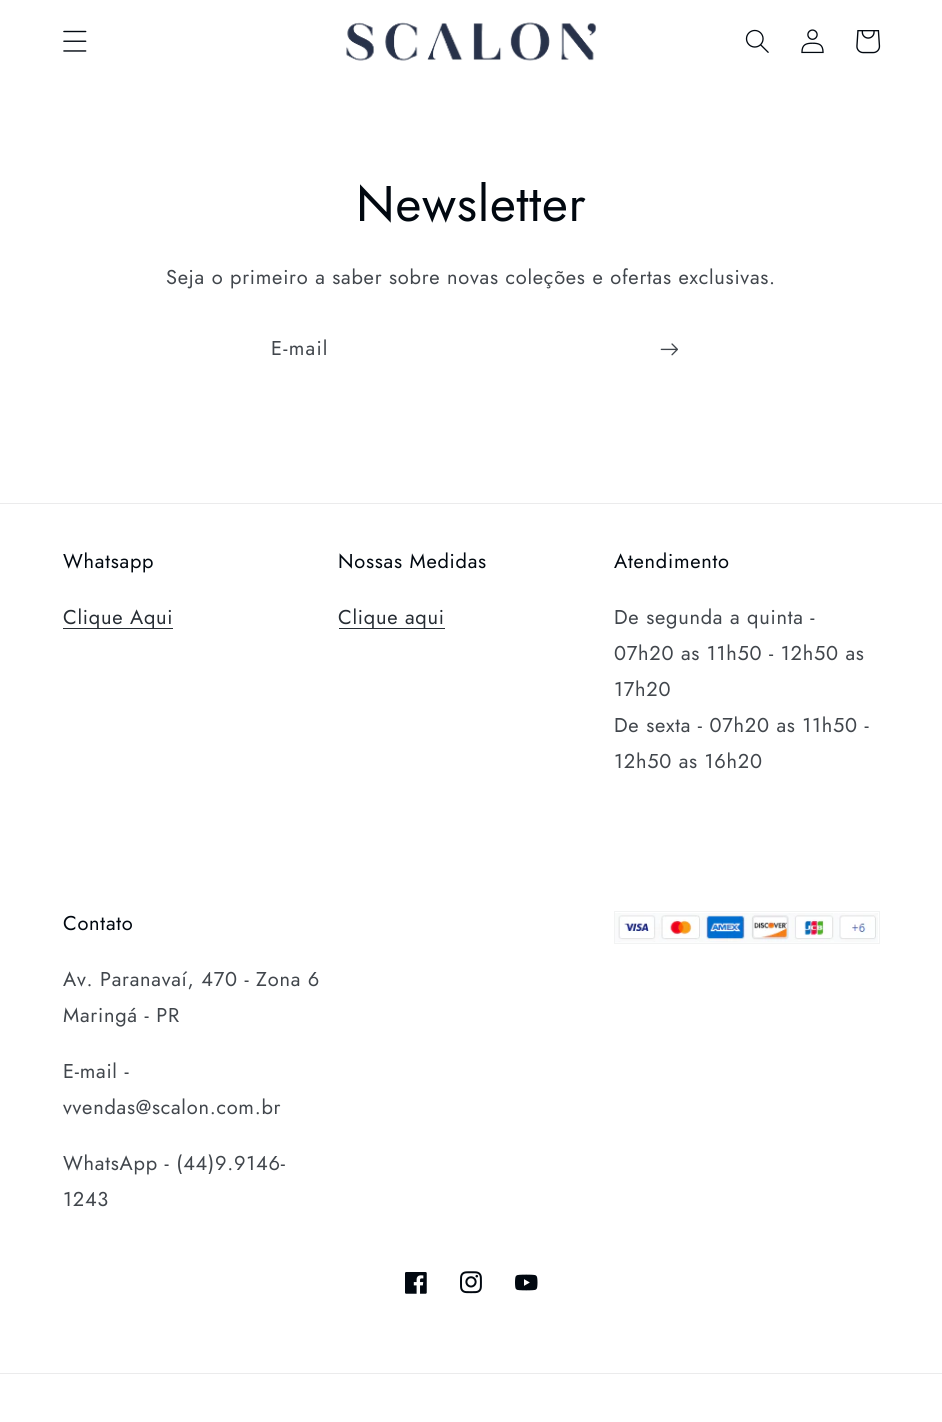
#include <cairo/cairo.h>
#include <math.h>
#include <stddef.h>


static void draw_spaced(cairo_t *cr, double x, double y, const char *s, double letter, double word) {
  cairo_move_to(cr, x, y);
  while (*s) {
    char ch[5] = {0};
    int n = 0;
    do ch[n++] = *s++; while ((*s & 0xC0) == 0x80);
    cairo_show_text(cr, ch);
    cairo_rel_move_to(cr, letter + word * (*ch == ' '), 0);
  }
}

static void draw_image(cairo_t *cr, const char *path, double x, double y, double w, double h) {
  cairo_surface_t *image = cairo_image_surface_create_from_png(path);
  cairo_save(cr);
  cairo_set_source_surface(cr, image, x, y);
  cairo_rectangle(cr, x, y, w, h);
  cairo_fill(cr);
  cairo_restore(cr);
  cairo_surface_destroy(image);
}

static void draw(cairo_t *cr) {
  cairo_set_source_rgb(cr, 1, 1, 1);
  cairo_paint(cr);
  draw_image(cr, "images/1.png", 63, 30, 24, 22);
  draw_image(cr, "images/2.png", 346, 22, 251, 39);
  draw_image(cr, "images/3.png", 745, 29, 24, 24);
  draw_image(cr, "images/4.png", 801, 29, 23, 25);
  draw_image(cr, "images/5.png", 856, 30, 25, 24);
  draw_image(cr, "images/6.png", 660, 343, 18, 13);
  cairo_set_source_rgb(cr, 235 / 255.0, 235 / 255.0, 236 / 255.0);
  cairo_rectangle(cr, 0, 503, 942, 1);
  cairo_fill(cr);
  cairo_set_source_rgb(cr, 39 / 255.0, 45 / 255.0, 52 / 255.0);
  cairo_rectangle(cr, 63, 628, 110, 1);
  cairo_fill(cr);
  cairo_rectangle(cr, 339, 628, 106, 1);
  cairo_fill(cr);
  cairo_rectangle(cr, 614.5, 911.5, 265, 32);
  cairo_set_source_rgb(cr, 242 / 255.0, 243 / 255.0, 243 / 255.0);
  cairo_set_line_width(cr, 1);
  cairo_stroke(cr);
  draw_image(cr, "images/7.png", 615, 913, 263, 30);
  draw_image(cr, "images/8.png", 405, 1272, 22, 22);
  draw_image(cr, "images/9.png", 460, 1271, 22, 23);
  draw_image(cr, "images/10.png", 515, 1274, 23, 17);
  cairo_set_source_rgb(cr, 235 / 255.0, 235 / 255.0, 236 / 255.0);
  cairo_rectangle(cr, 0, 1373, 942, 1);
  cairo_fill(cr);
  cairo_select_font_face(cr, "Jost", CAIRO_FONT_SLANT_NORMAL, CAIRO_FONT_WEIGHT_NORMAL);
  cairo_set_font_size(cr, 50);
  cairo_set_source_rgb(cr, 1 / 255.0, 8 / 255.0, 16 / 255.0);
  draw_spaced(cr, 356, 221, "Newsletter", 0.75, 0);
  cairo_set_font_size(cr, 20);
  cairo_set_source_rgb(cr, 65 / 255.0, 70 / 255.0, 76 / 255.0);
  draw_spaced(cr, 166, 284, "Seja o primeiro a saber sobre novas coleções e ofertas exclusivas.", 0.75, 0);
  draw_spaced(cr, 271, 355, "E-mail", 1.25, 0);
  cairo_set_source_rgb(cr, 1 / 255.0, 8 / 255.0, 16 / 255.0);
  draw_spaced(cr, 63, 568, "Whatsapp", 0.75, 0);
  cairo_set_source_rgb(cr, 39 / 255.0, 45 / 255.0, 52 / 255.0);
  draw_spaced(cr, 63, 624, "Clique Aqui", 0.75, 0);
  cairo_set_source_rgb(cr, 1 / 255.0, 8 / 255.0, 16 / 255.0);
  draw_spaced(cr, 338, 568, "Nossas Medidas", 0.75, 0);
  cairo_set_source_rgb(cr, 39 / 255.0, 45 / 255.0, 52 / 255.0);
  draw_spaced(cr, 338, 624, "Clique aqui", 0.75, 0);
  cairo_set_source_rgb(cr, 1 / 255.0, 8 / 255.0, 16 / 255.0);
  draw_spaced(cr, 614, 568, "Atendimento", 0.75, 0);
  cairo_set_source_rgb(cr, 65 / 255.0, 70 / 255.0, 76 / 255.0);
  draw_spaced(cr, 614, 624, "De segunda a quinta -", 0.75, 0);
  draw_spaced(cr, 614, 660, "07h20 as 11h50 - 12h50 as", 0.75, 0);
  draw_spaced(cr, 614, 696, "17h20", 0.75, 0);
  draw_spaced(cr, 614, 732, "De sexta - 07h20 as 11h50 -", 0.75, 0);
  draw_spaced(cr, 614, 768, "12h50 as 16h20", 0.75, 0);
  cairo_set_source_rgb(cr, 1 / 255.0, 8 / 255.0, 16 / 255.0);
  draw_spaced(cr, 63, 930, "Contato", 0.75, 0);
  cairo_set_source_rgb(cr, 65 / 255.0, 70 / 255.0, 76 / 255.0);
  draw_spaced(cr, 63, 986, "Av. Paranavaí, 470 - Zona 6", 0.75, 0);
  draw_spaced(cr, 63, 1022, "Maringá - PR", 0.75, 0);
  draw_spaced(cr, 63, 1078, "E-mail -", 0.75, 0);
  draw_spaced(cr, 63, 1114, "vvendas@scalon.com.br", 0.75, 0);
  draw_spaced(cr, 63, 1170, "WhatsApp - (44)9.9146-", 0.75, 0);
  draw_spaced(cr, 63, 1206, "1243", 0.75, 0);
}

int main(void) {
  cairo_surface_t *surface = cairo_image_surface_create(CAIRO_FORMAT_RGB24, 942, 1422);
  cairo_t *cr = cairo_create(surface);
  cairo_font_options_t *options = cairo_font_options_create();
  cairo_font_options_set_hint_metrics(options, CAIRO_HINT_METRICS_OFF);
  cairo_font_options_set_hint_style(options, CAIRO_HINT_STYLE_NONE);
  cairo_set_font_options(cr, options);
  cairo_set_miter_limit(cr, 4);
  draw(cr);
  cairo_surface_write_to_png(surface, "out.png");
  cairo_font_options_destroy(options);
  cairo_destroy(cr);
  cairo_surface_destroy(surface);
  return 0;
}
